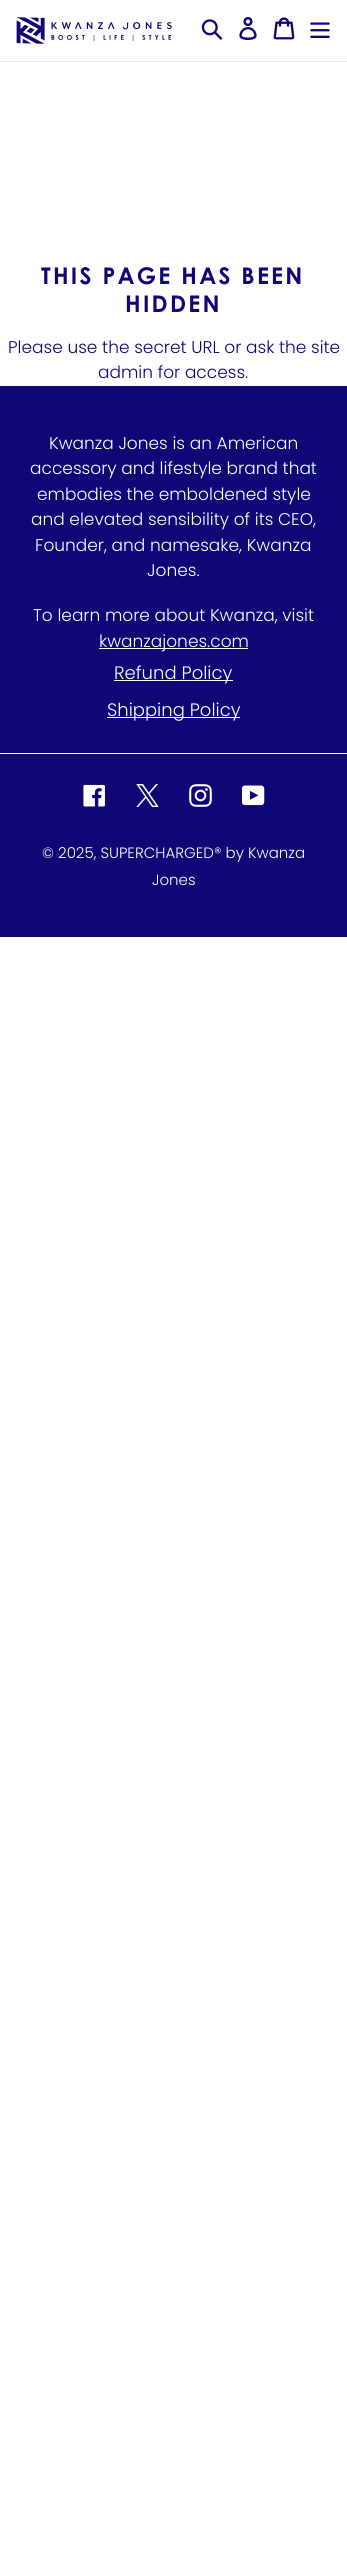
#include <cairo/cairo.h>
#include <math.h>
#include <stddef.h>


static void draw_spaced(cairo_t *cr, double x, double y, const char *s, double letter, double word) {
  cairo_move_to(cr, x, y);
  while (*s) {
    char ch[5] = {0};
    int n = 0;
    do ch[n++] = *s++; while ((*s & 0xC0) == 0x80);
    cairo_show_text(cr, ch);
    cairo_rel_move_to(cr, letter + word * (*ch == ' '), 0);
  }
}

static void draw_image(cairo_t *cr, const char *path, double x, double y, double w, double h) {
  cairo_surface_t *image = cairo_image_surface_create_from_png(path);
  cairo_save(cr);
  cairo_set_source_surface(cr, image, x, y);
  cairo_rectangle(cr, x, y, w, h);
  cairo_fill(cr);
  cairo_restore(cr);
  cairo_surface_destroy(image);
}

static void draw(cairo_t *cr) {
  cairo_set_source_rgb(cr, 1, 1, 1);
  cairo_paint(cr);
  cairo_set_source_rgb(cr, 232 / 255.0, 233 / 255.0, 235 / 255.0);
  cairo_rectangle(cr, 0, 61, 347, 1);
  cairo_fill(cr);
  draw_image(cr, "images/1.png", 16, 17, 156, 27);
  draw_image(cr, "images/2.png", 201, 19, 22, 21);
  draw_image(cr, "images/3.png", 239, 17, 18, 23);
  draw_image(cr, "images/4.png", 273, 17, 22, 23);
  draw_image(cr, "images/5.png", 310, 22, 20, 16);
  cairo_set_source_rgb(cr, 14 / 255.0, 7 / 255.0, 117 / 255.0);
  cairo_rectangle(cr, 0, 386, 347, 551);
  cairo_fill(cr);
  cairo_set_source_rgb(cr, 1, 1, 1);
  cairo_rectangle(cr, 99, 648, 149, 1);
  cairo_fill(cr);
  cairo_rectangle(cr, 114, 680, 119, 1);
  cairo_fill(cr);
  cairo_rectangle(cr, 107, 717, 133, 1);
  cairo_fill(cr);
  cairo_rectangle(cr, 0, 753, 347, 1);
  cairo_fill(cr);
  draw_image(cr, "images/6.png", 83, 784, 22, 23);
  draw_image(cr, "images/7.png", 136, 784, 23, 23);
  draw_image(cr, "images/8.png", 189, 784, 23, 23);
  draw_image(cr, "images/9.png", 242, 785, 23, 21);
  cairo_select_font_face(cr, "Century Gothic", CAIRO_FONT_SLANT_NORMAL, CAIRO_FONT_WEIGHT_BOLD);
  cairo_set_font_size(cr, 23);
  cairo_set_source_rgb(cr, 14 / 255.0, 7 / 255.0, 117 / 255.0);
  draw_spaced(cr, 41, 284, "THIS PAGE HAS BEEN", 2.25, 0);
  draw_spaced(cr, 125, 312, "HIDDEN", 2.25, 0);
  cairo_select_font_face(cr, "Poppins Light", CAIRO_FONT_SLANT_NORMAL, CAIRO_FONT_WEIGHT_NORMAL);
  cairo_set_font_size(cr, 17);
  cairo_move_to(cr, 8, 353);
  cairo_show_text(cr, "Please use the secret URL or ask the site");
  cairo_move_to(cr, 98, 378);
  cairo_show_text(cr, "admin for access.");
  cairo_set_source_rgb(cr, 1, 1, 1);
  cairo_move_to(cr, 49, 449);
  cairo_show_text(cr, "Kwanza Jones is an American");
  cairo_move_to(cr, 30, 474);
  cairo_show_text(cr, "accessory and lifestyle brand that");
  cairo_move_to(cr, 37, 500);
  cairo_show_text(cr, "embodies the emboldened style");
  cairo_move_to(cr, 31, 525);
  cairo_show_text(cr, "and elevated sensibility of its CEO,");
  cairo_move_to(cr, 35, 551);
  cairo_show_text(cr, "Founder, and namesake, Kwanza");
  cairo_move_to(cr, 147, 576);
  cairo_show_text(cr, "Jones.");
  cairo_move_to(cr, 33, 621);
  cairo_show_text(cr, "To learn more about Kwanza, visit");
  cairo_move_to(cr, 99, 647);
  cairo_show_text(cr, "kwanzajones.com");
  cairo_set_font_size(cr, 18);
  cairo_move_to(cr, 114, 679);
  cairo_show_text(cr, "Refund Policy");
  cairo_move_to(cr, 107, 716);
  cairo_show_text(cr, "Shipping Policy");
  cairo_set_font_size(cr, 15);
  cairo_move_to(cr, 42, 858);
  cairo_show_text(cr, "© 2025, SUPERCHARGED® by Kwanza");
  cairo_move_to(cr, 152, 885);
  cairo_show_text(cr, "Jones");
}

int main(void) {
  cairo_surface_t *surface = cairo_image_surface_create(CAIRO_FORMAT_RGB24, 347, 2558);
  cairo_t *cr = cairo_create(surface);
  cairo_font_options_t *options = cairo_font_options_create();
  cairo_font_options_set_hint_metrics(options, CAIRO_HINT_METRICS_OFF);
  cairo_font_options_set_hint_style(options, CAIRO_HINT_STYLE_NONE);
  cairo_set_font_options(cr, options);
  cairo_set_miter_limit(cr, 4);
  draw(cr);
  cairo_surface_write_to_png(surface, "out.png");
  cairo_font_options_destroy(options);
  cairo_destroy(cr);
  cairo_surface_destroy(surface);
  return 0;
}
